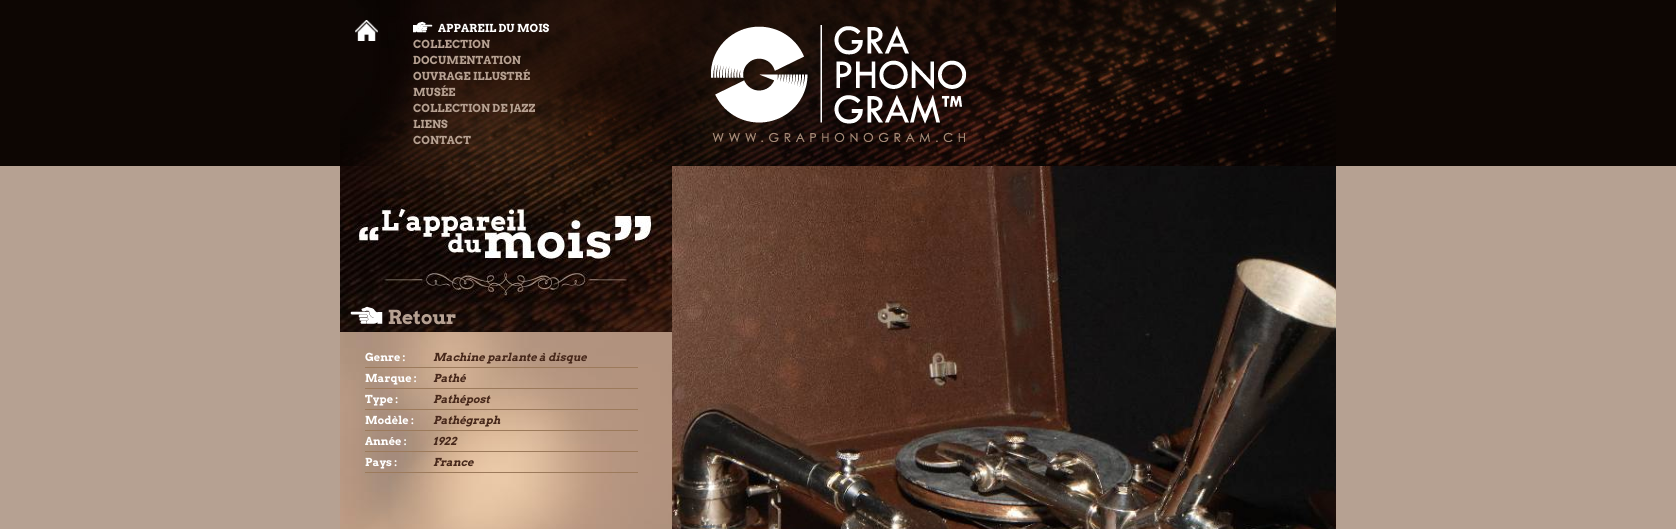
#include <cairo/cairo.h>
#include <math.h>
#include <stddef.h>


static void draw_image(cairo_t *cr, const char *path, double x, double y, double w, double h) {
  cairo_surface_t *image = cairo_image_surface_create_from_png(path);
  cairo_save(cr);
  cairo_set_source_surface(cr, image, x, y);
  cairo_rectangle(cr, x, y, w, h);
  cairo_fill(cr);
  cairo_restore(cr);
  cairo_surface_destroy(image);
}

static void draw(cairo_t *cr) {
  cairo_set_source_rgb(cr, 13 / 255.0, 6 / 255.0, 3 / 255.0);
  cairo_paint(cr);
  draw_image(cr, "images/1.png", 340, 0, 996, 166);
  draw_image(cr, "images/2.png", 355, 20, 23, 21);
  draw_image(cr, "images/3.png", 413, 21, 20, 12);
  draw_image(cr, "images/4.png", 711, 25, 255, 117);
  cairo_set_source_rgb(cr, 182 / 255.0, 161 / 255.0, 146 / 255.0);
  cairo_rectangle(cr, 0, 166, 1676, 363);
  cairo_fill(cr);
  draw_image(cr, "images/5.png", 340, 166, 332, 166);
  draw_image(cr, "images/6.png", 350, 306, 106, 19);
  draw_image(cr, "images/7.png", 672, 166, 664, 363);
  draw_image(cr, "images/8.png", 340, 332, 332, 166);
  cairo_set_source_rgb(cr, 156 / 255.0, 122 / 255.0, 91 / 255.0);
  cairo_rectangle(cr, 365, 367, 273, 1);
  cairo_fill(cr);
  cairo_rectangle(cr, 365, 388, 273, 1);
  cairo_fill(cr);
  cairo_rectangle(cr, 365, 409, 273, 1);
  cairo_fill(cr);
  cairo_rectangle(cr, 365, 430, 273, 1);
  cairo_fill(cr);
  cairo_rectangle(cr, 365, 451, 273, 1);
  cairo_fill(cr);
  cairo_rectangle(cr, 365, 472, 273, 1);
  cairo_fill(cr);
  draw_image(cr, "images/9.png", 340, 498, 332, 31);
  cairo_select_font_face(cr, "Arvo", CAIRO_FONT_SLANT_NORMAL, CAIRO_FONT_WEIGHT_BOLD);
  cairo_set_font_size(cr, 11);
  cairo_set_source_rgb(cr, 1, 1, 1);
  cairo_move_to(cr, 438, 32);
  cairo_show_text(cr, "APPAREIL DU MOIS");
  cairo_set_source_rgb(cr, 182 / 255.0, 161 / 255.0, 146 / 255.0);
  cairo_move_to(cr, 413, 48);
  cairo_show_text(cr, "COLLECTION");
  cairo_move_to(cr, 413, 64);
  cairo_show_text(cr, "DOCUMENTATION");
  cairo_move_to(cr, 413, 80);
  cairo_show_text(cr, "OUVRAGE ILLUSTRÉ");
  cairo_move_to(cr, 413, 96);
  cairo_show_text(cr, "MUSÉE");
  cairo_move_to(cr, 413, 112);
  cairo_show_text(cr, "COLLECTION DE JAZZ");
  cairo_move_to(cr, 413, 128);
  cairo_show_text(cr, "LIENS");
  cairo_move_to(cr, 413, 144);
  cairo_show_text(cr, "CONTACT");
  cairo_set_source_rgb(cr, 1, 1, 1);
  cairo_move_to(cr, 365, 361);
  cairo_show_text(cr, "Genre :");
  cairo_select_font_face(cr, "Arvo", CAIRO_FONT_SLANT_ITALIC, CAIRO_FONT_WEIGHT_BOLD);
  cairo_set_source_rgb(cr, 70 / 255.0, 39 / 255.0, 26 / 255.0);
  cairo_move_to(cr, 433, 361);
  cairo_show_text(cr, "Machine parlante à disque");
  cairo_select_font_face(cr, "Arvo", CAIRO_FONT_SLANT_NORMAL, CAIRO_FONT_WEIGHT_BOLD);
  cairo_set_source_rgb(cr, 1, 1, 1);
  cairo_move_to(cr, 365, 382);
  cairo_show_text(cr, "Marque :");
  cairo_select_font_face(cr, "Arvo", CAIRO_FONT_SLANT_ITALIC, CAIRO_FONT_WEIGHT_BOLD);
  cairo_set_source_rgb(cr, 70 / 255.0, 39 / 255.0, 26 / 255.0);
  cairo_move_to(cr, 433, 382);
  cairo_show_text(cr, "Pathé");
  cairo_select_font_face(cr, "Arvo", CAIRO_FONT_SLANT_NORMAL, CAIRO_FONT_WEIGHT_BOLD);
  cairo_set_source_rgb(cr, 1, 1, 1);
  cairo_move_to(cr, 365, 403);
  cairo_show_text(cr, "Type :");
  cairo_select_font_face(cr, "Arvo", CAIRO_FONT_SLANT_ITALIC, CAIRO_FONT_WEIGHT_BOLD);
  cairo_set_source_rgb(cr, 70 / 255.0, 39 / 255.0, 26 / 255.0);
  cairo_move_to(cr, 433, 403);
  cairo_show_text(cr, "Pathépost");
  cairo_select_font_face(cr, "Arvo", CAIRO_FONT_SLANT_NORMAL, CAIRO_FONT_WEIGHT_BOLD);
  cairo_set_source_rgb(cr, 1, 1, 1);
  cairo_move_to(cr, 365, 424);
  cairo_show_text(cr, "Modèle :");
  cairo_select_font_face(cr, "Arvo", CAIRO_FONT_SLANT_ITALIC, CAIRO_FONT_WEIGHT_BOLD);
  cairo_set_source_rgb(cr, 70 / 255.0, 39 / 255.0, 26 / 255.0);
  cairo_move_to(cr, 433, 424);
  cairo_show_text(cr, "Pathégraph");
  cairo_select_font_face(cr, "Arvo", CAIRO_FONT_SLANT_NORMAL, CAIRO_FONT_WEIGHT_BOLD);
  cairo_set_source_rgb(cr, 1, 1, 1);
  cairo_move_to(cr, 365, 445);
  cairo_show_text(cr, "Année :");
  cairo_select_font_face(cr, "Arvo", CAIRO_FONT_SLANT_ITALIC, CAIRO_FONT_WEIGHT_BOLD);
  cairo_set_source_rgb(cr, 70 / 255.0, 39 / 255.0, 26 / 255.0);
  cairo_move_to(cr, 433, 445);
  cairo_show_text(cr, "1922");
  cairo_select_font_face(cr, "Arvo", CAIRO_FONT_SLANT_NORMAL, CAIRO_FONT_WEIGHT_BOLD);
  cairo_set_source_rgb(cr, 1, 1, 1);
  cairo_move_to(cr, 365, 466);
  cairo_show_text(cr, "Pays :");
  cairo_select_font_face(cr, "Arvo", CAIRO_FONT_SLANT_ITALIC, CAIRO_FONT_WEIGHT_BOLD);
  cairo_set_source_rgb(cr, 70 / 255.0, 39 / 255.0, 26 / 255.0);
  cairo_move_to(cr, 433, 466);
  cairo_show_text(cr, "France");
}

int main(void) {
  cairo_surface_t *surface = cairo_image_surface_create(CAIRO_FORMAT_RGB24, 1676, 529);
  cairo_t *cr = cairo_create(surface);
  cairo_font_options_t *options = cairo_font_options_create();
  cairo_font_options_set_hint_metrics(options, CAIRO_HINT_METRICS_OFF);
  cairo_font_options_set_hint_style(options, CAIRO_HINT_STYLE_NONE);
  cairo_set_font_options(cr, options);
  cairo_set_miter_limit(cr, 4);
  draw(cr);
  cairo_surface_write_to_png(surface, "out.png");
  cairo_font_options_destroy(options);
  cairo_destroy(cr);
  cairo_surface_destroy(surface);
  return 0;
}
